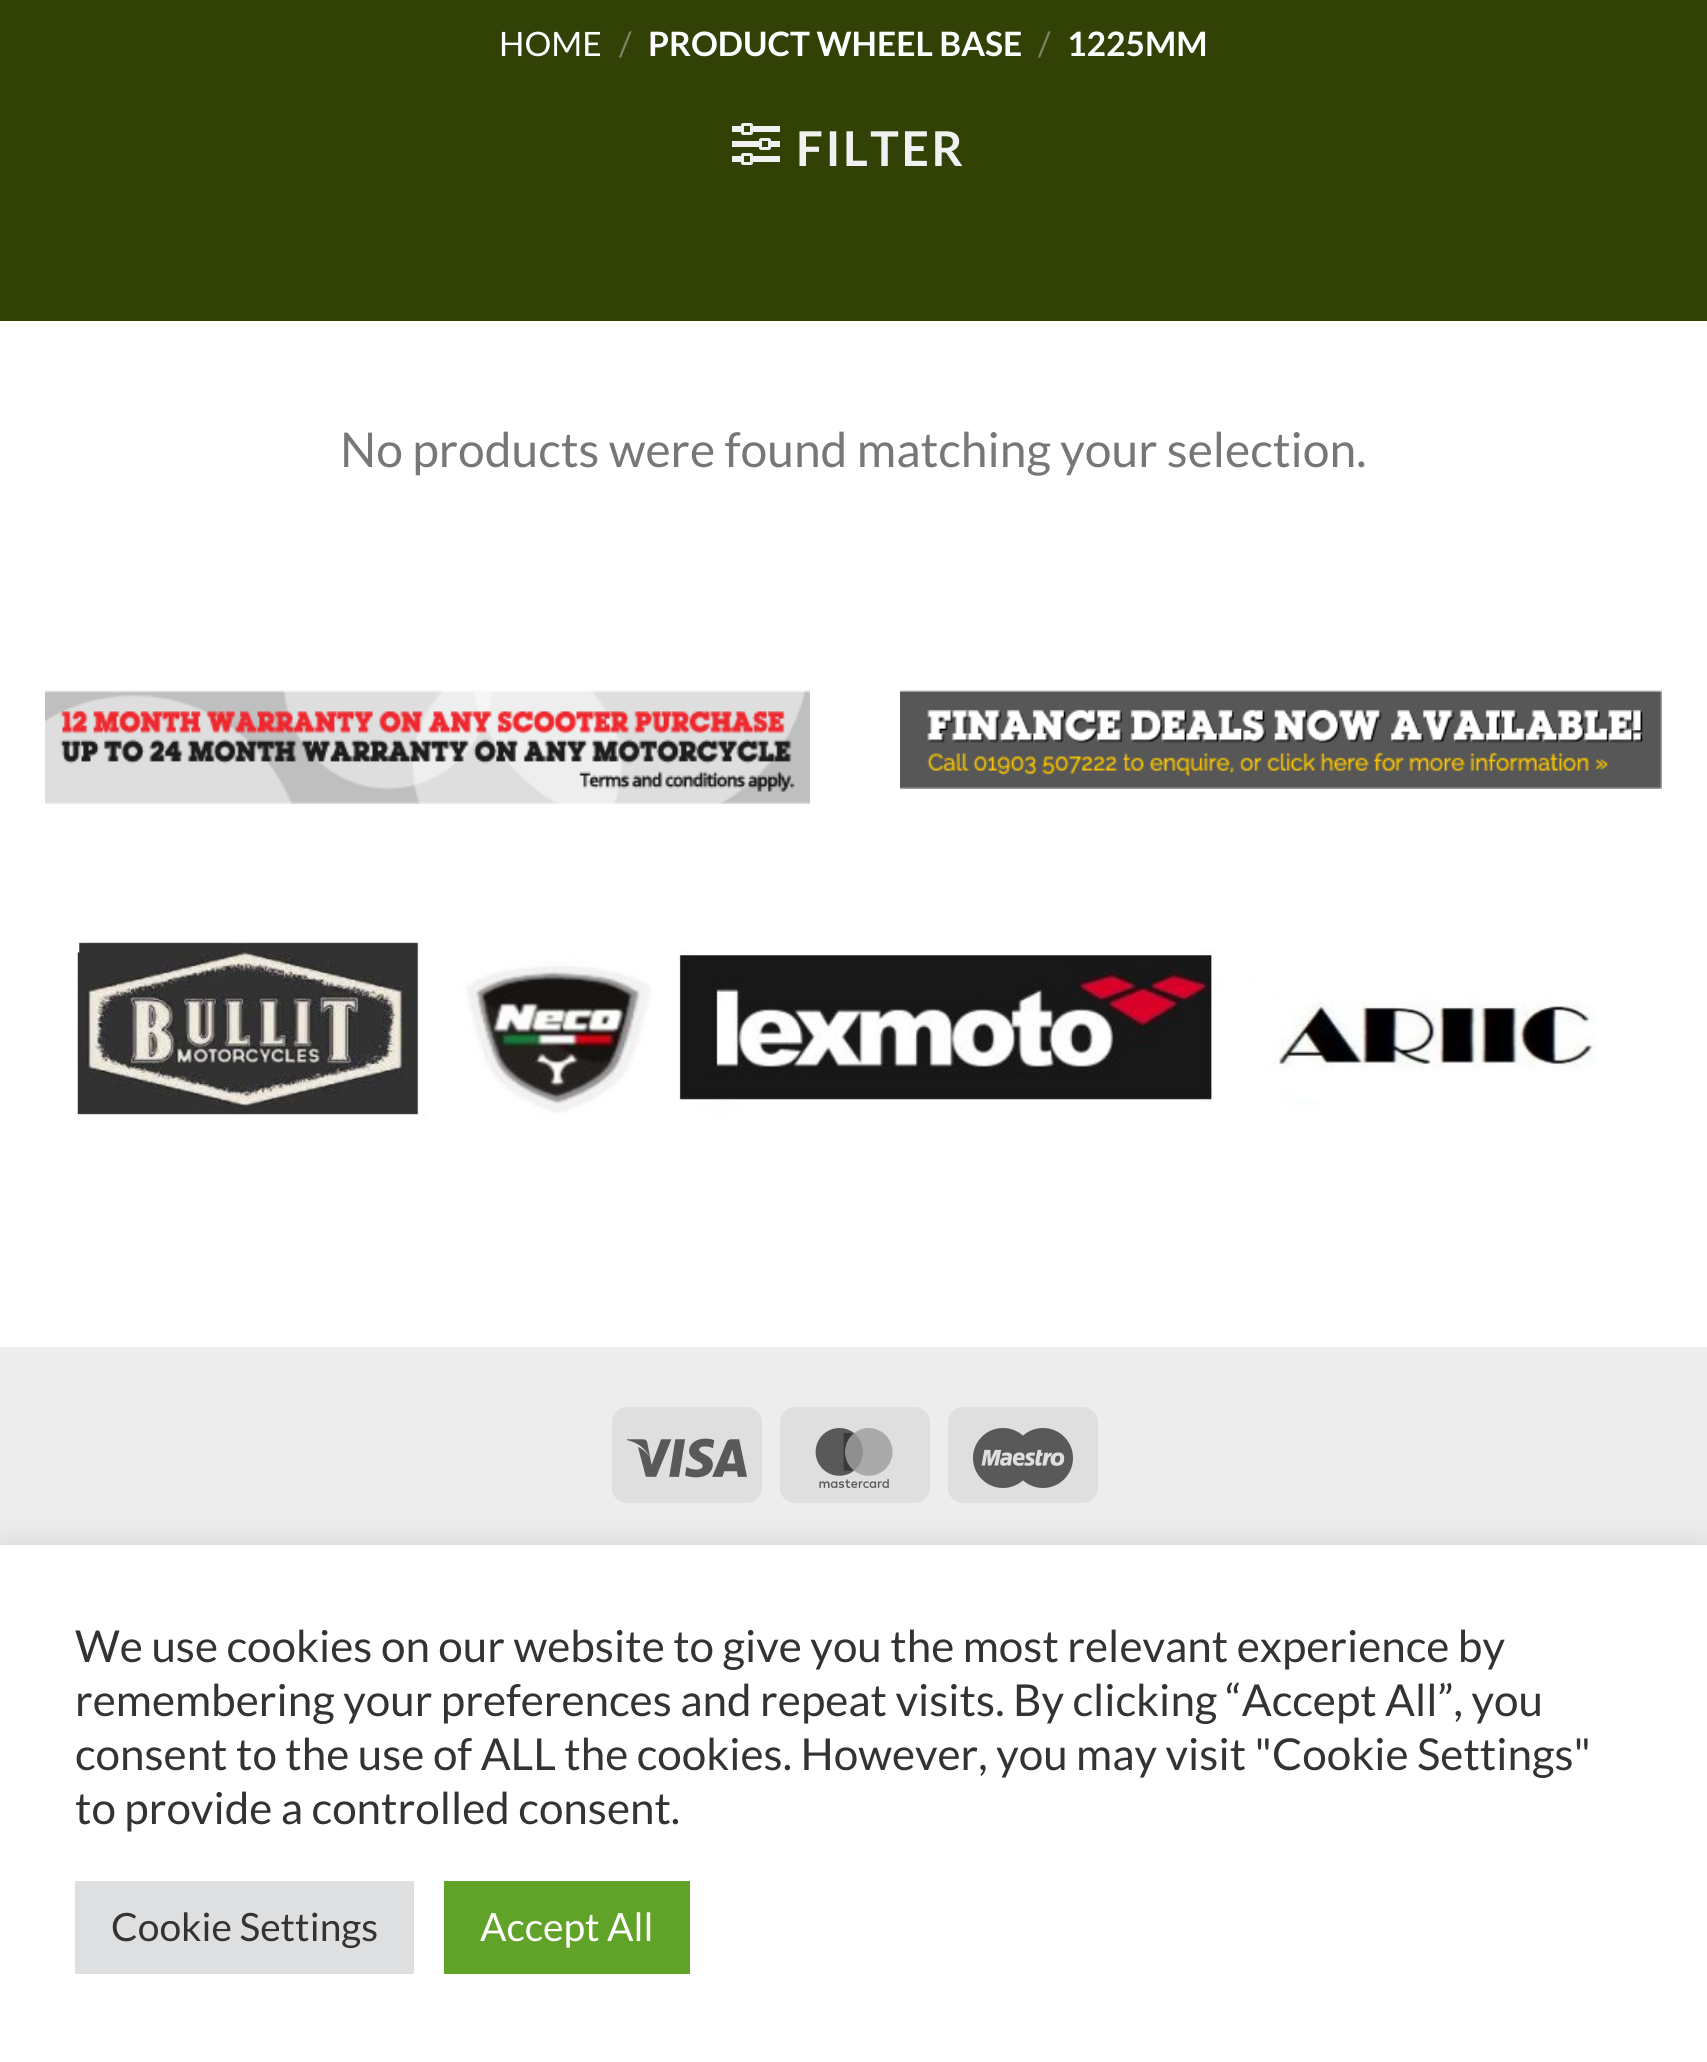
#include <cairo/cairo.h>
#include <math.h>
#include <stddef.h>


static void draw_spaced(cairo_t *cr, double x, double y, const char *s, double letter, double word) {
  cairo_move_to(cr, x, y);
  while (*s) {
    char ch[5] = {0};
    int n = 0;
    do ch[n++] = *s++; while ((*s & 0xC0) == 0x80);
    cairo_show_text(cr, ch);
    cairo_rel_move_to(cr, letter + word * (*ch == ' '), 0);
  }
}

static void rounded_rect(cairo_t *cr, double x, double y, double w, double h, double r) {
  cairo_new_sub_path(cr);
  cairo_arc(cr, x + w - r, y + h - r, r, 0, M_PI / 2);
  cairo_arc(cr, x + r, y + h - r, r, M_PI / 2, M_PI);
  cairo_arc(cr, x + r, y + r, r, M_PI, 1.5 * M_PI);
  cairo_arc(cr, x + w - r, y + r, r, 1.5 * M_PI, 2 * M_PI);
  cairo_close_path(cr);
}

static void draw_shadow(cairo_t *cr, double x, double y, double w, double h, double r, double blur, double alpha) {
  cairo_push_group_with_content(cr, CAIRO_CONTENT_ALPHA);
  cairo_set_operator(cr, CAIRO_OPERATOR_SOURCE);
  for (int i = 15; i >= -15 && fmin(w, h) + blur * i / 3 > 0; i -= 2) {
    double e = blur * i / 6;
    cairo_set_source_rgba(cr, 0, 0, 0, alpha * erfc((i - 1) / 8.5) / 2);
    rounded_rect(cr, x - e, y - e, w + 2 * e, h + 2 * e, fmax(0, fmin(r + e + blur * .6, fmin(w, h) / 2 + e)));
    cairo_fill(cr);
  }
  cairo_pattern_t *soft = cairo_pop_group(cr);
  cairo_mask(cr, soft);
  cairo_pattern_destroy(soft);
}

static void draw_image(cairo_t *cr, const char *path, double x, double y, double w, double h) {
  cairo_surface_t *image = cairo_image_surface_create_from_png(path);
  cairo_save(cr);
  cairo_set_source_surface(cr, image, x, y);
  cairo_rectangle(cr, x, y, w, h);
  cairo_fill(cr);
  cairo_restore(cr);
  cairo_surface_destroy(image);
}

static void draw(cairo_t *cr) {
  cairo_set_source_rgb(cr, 1, 1, 1);
  cairo_paint(cr);
  cairo_set_source_rgb(cr, 50 / 255.0, 66 / 255.0, 7 / 255.0);
  cairo_rectangle(cr, 0, 0, 1707, 321);
  cairo_fill(cr);
  draw_image(cr, "images/1.png", 732, 123, 48, 42);
  draw_image(cr, "images/2.png", 45, 690, 765, 114);
  draw_image(cr, "images/3.png", 900, 690, 762, 99);
  draw_image(cr, "images/4.png", 77, 939, 1519, 179);
  cairo_set_source_rgb(cr, 237 / 255.0, 237 / 255.0, 237 / 255.0);
  cairo_rectangle(cr, 0, 1347, 1707, 198);
  cairo_fill(cr);
  cairo_set_source_rgb(cr, 223 / 255.0, 223 / 255.0, 223 / 255.0);
  rounded_rect(cr, 612, 1407, 150, 96, 15);
  cairo_fill(cr);
  draw_image(cr, "images/5.png", 627, 1438, 120, 40);
  rounded_rect(cr, 780, 1407, 150, 96, 15);
  cairo_fill(cr);
  draw_image(cr, "images/6.png", 815, 1428, 78, 60);
  rounded_rect(cr, 948, 1407, 150, 96, 15);
  cairo_fill(cr);
  draw_image(cr, "images/7.png", 973, 1428, 100, 60);
  cairo_set_source_rgb(cr, 172 / 255.0, 171 / 255.0, 171 / 255.0);
  draw_shadow(cr, 0, 1542, 1707, 519, 0, 15, 0.3);
  cairo_set_source_rgb(cr, 1, 1, 1);
  cairo_rectangle(cr, 0, 1545, 1707, 517);
  cairo_fill(cr);
  cairo_set_source_rgb(cr, 222 / 255.0, 223 / 255.0, 224 / 255.0);
  cairo_rectangle(cr, 75, 1881, 339, 93);
  cairo_fill(cr);
  cairo_set_source_rgb(cr, 97 / 255.0, 162 / 255.0, 41 / 255.0);
  cairo_rectangle(cr, 444, 1881, 246, 93);
  cairo_fill(cr);
  cairo_select_font_face(cr, "Lato", CAIRO_FONT_SLANT_NORMAL, CAIRO_FONT_WEIGHT_NORMAL);
  cairo_set_font_size(cr, 33.6);
  cairo_set_source_rgb(cr, 1, 1, 1);
  cairo_move_to(cr, 499, 56);
  cairo_show_text(cr, "HOME");
  cairo_set_source_rgb(cr, 122 / 255.0, 132 / 255.0, 94 / 255.0);
  cairo_move_to(cr, 619, 56);
  cairo_show_text(cr, "/");
  cairo_select_font_face(cr, "Lato", CAIRO_FONT_SLANT_NORMAL, CAIRO_FONT_WEIGHT_BOLD);
  cairo_set_source_rgb(cr, 1, 1, 1);
  cairo_move_to(cr, 648, 56);
  cairo_show_text(cr, "PRODUCT WHEEL BASE");
  cairo_select_font_face(cr, "Lato", CAIRO_FONT_SLANT_NORMAL, CAIRO_FONT_WEIGHT_NORMAL);
  cairo_set_source_rgb(cr, 122 / 255.0, 132 / 255.0, 94 / 255.0);
  cairo_move_to(cr, 1038, 56);
  cairo_show_text(cr, "/");
  cairo_select_font_face(cr, "Lato", CAIRO_FONT_SLANT_NORMAL, CAIRO_FONT_WEIGHT_BOLD);
  cairo_set_source_rgb(cr, 1, 1, 1);
  cairo_move_to(cr, 1067, 56);
  cairo_show_text(cr, "1225MM");
  cairo_set_font_size(cr, 48);
  cairo_set_source_rgb(cr, 241 / 255.0, 241 / 255.0, 241 / 255.0);
  draw_spaced(cr, 796, 166, "FILTER", 2.5, 0);
  cairo_select_font_face(cr, "Lato", CAIRO_FONT_SLANT_NORMAL, CAIRO_FONT_WEIGHT_NORMAL);
  cairo_set_source_rgb(cr, 119 / 255.0, 119 / 255.0, 119 / 255.0);
  cairo_move_to(cr, 340, 467);
  cairo_show_text(cr, "No products were found matching your selection.");
  cairo_set_font_size(cr, 44);
  cairo_set_source_rgb(cr, 51 / 255.0, 51 / 255.0, 51 / 255.0);
  cairo_move_to(cr, 75, 1662);
  cairo_show_text(cr, "We use cookies on our website to give you the most relevant experience by");
  cairo_move_to(cr, 75, 1716);
  cairo_show_text(cr, "remembering your preferences and repeat visits. By clicking “Accept All”, you");
  cairo_move_to(cr, 75, 1770);
  cairo_show_text(cr, "consent to the use of ALL the cookies. However, you may visit \"Cookie Settings\"");
  cairo_move_to(cr, 75, 1824);
  cairo_show_text(cr, "to provide a controlled consent.");
  cairo_set_font_size(cr, 39);
  cairo_move_to(cr, 111, 1941);
  cairo_show_text(cr, "Cookie Settings");
  cairo_set_source_rgb(cr, 1, 1, 1);
  cairo_move_to(cr, 480, 1941);
  cairo_show_text(cr, "Accept All");
}

int main(void) {
  cairo_surface_t *surface = cairo_image_surface_create(CAIRO_FORMAT_RGB24, 1707, 2062);
  cairo_t *cr = cairo_create(surface);
  cairo_font_options_t *options = cairo_font_options_create();
  cairo_font_options_set_hint_metrics(options, CAIRO_HINT_METRICS_OFF);
  cairo_font_options_set_hint_style(options, CAIRO_HINT_STYLE_NONE);
  cairo_set_font_options(cr, options);
  cairo_set_miter_limit(cr, 4);
  draw(cr);
  cairo_surface_write_to_png(surface, "out.png");
  cairo_font_options_destroy(options);
  cairo_destroy(cr);
  cairo_surface_destroy(surface);
  return 0;
}
